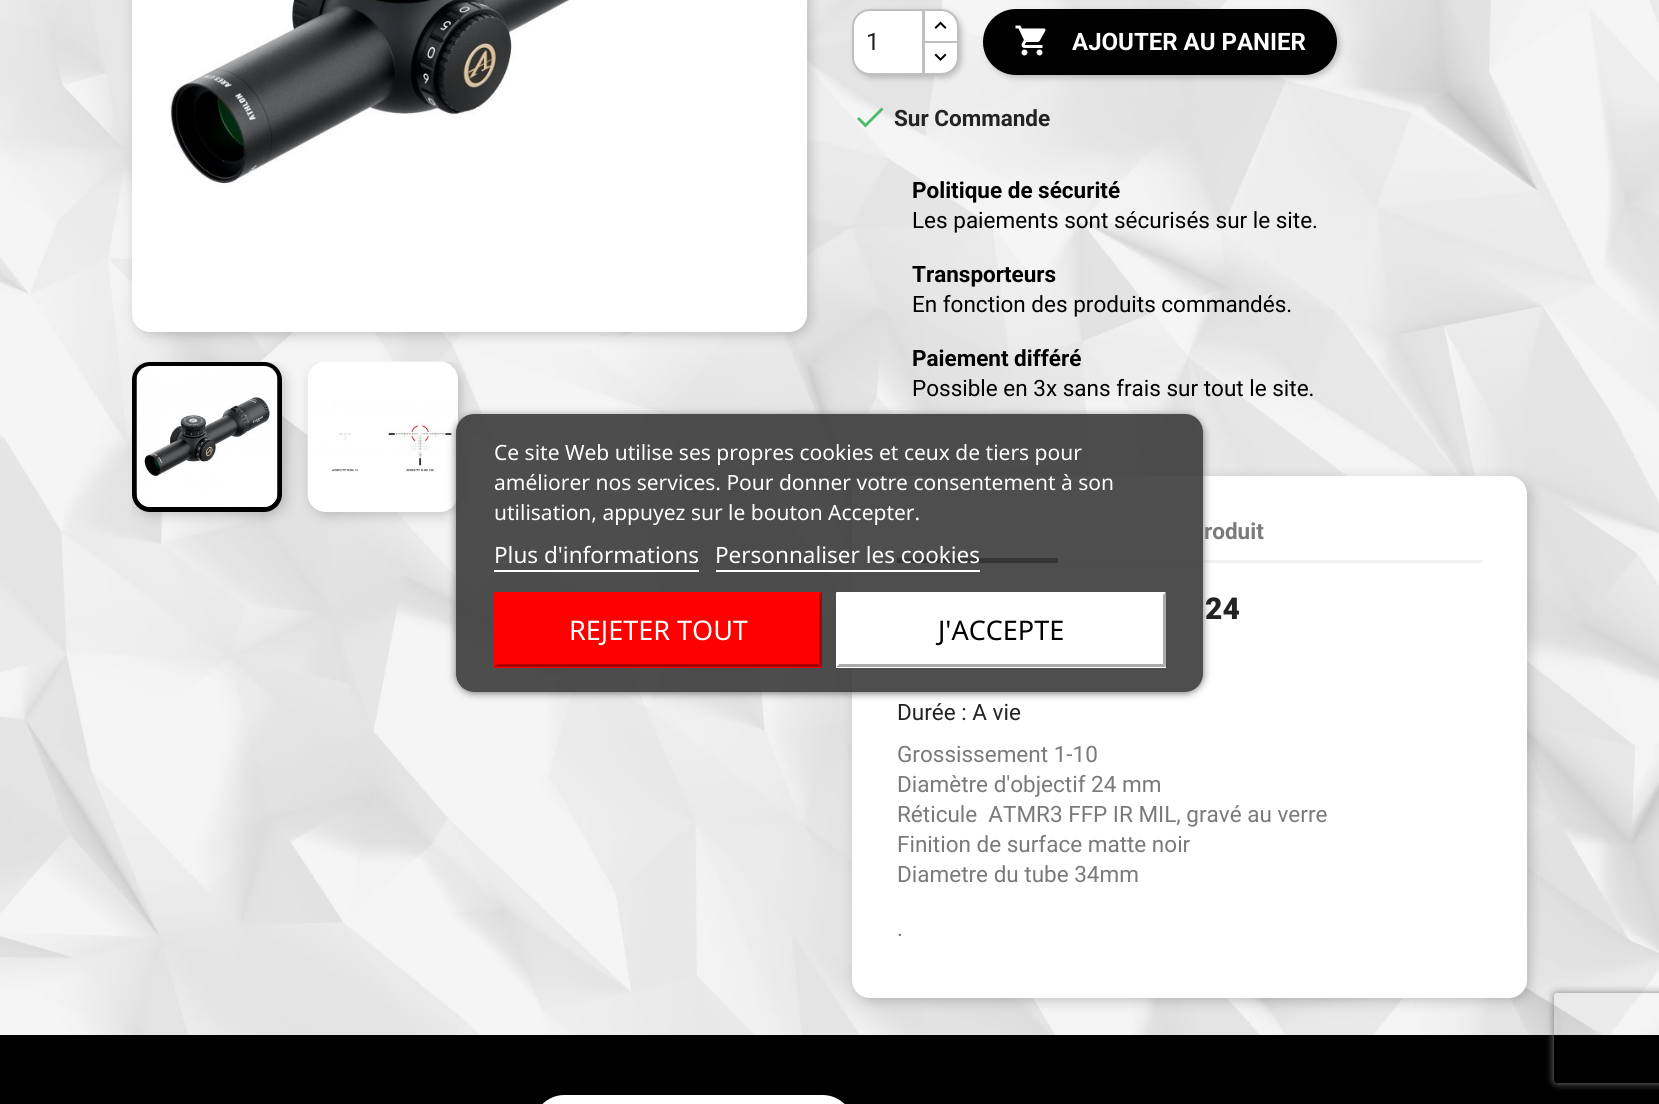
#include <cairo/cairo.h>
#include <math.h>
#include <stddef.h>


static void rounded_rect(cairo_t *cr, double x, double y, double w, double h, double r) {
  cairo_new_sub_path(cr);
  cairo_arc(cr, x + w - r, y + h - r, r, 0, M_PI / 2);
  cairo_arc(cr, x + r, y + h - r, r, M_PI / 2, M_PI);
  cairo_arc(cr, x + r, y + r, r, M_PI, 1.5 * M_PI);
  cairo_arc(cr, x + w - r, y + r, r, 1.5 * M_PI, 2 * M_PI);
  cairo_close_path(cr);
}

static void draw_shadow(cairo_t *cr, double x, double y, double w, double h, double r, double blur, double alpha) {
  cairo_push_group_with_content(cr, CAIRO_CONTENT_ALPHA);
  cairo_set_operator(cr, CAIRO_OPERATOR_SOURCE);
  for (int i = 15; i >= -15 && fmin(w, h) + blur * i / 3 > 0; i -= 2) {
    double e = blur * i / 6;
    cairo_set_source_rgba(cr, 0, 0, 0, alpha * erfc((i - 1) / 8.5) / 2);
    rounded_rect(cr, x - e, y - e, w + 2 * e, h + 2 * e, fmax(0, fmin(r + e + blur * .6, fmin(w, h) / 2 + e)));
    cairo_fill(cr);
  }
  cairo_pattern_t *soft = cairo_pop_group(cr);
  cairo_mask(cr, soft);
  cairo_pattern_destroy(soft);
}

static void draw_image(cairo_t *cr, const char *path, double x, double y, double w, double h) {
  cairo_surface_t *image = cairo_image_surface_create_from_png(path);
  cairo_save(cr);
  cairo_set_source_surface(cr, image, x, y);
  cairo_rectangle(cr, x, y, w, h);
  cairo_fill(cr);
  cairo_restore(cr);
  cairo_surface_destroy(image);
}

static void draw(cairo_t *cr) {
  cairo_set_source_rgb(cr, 0, 0, 0);
  cairo_paint(cr);
  cairo_set_source_rgb(cr, 241 / 255.0, 241 / 255.0, 241 / 255.0);
  cairo_rectangle(cr, 0, 0, 1659, 1035);
  cairo_fill(cr);
  draw_image(cr, "images/1.png", 0, 0, 1659, 1035);
  cairo_set_source_rgb(cr, 0, 0, 0);
  draw_shadow(cr, 135, -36, 675, 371, 18, 6, 0.2);
  cairo_set_source_rgb(cr, 1, 1, 1);
  rounded_rect(cr, 132, -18, 675, 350, 18);
  cairo_fill(cr);
  draw_image(cr, "images/2.png", 169, 0, 638, 331);
  cairo_save(cr);
  cairo_rectangle(cr, 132, 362, 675, 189);
  cairo_clip(cr);
  cairo_set_source_rgb(cr, 0, 0, 0);
  draw_shadow(cr, 135, 365, 150, 150, 18, 6, 0.2);
  draw_shadow(cr, 311, 365, 150, 150, 18, 6, 0.2);
  cairo_restore(cr);
  rounded_rect(cr, 134.5, 364.5, 145, 145, 15.5);
  cairo_set_source_rgb(cr, 0, 0, 0);
  cairo_set_line_width(cr, 5);
  cairo_stroke(cr);
  cairo_set_source_rgb(cr, 1, 1, 1);
  rounded_rect(cr, 308, 362, 150, 150, 18);
  cairo_fill(cr);
  draw_image(cr, "images/3.png", 307, 361, 150, 150);
  draw_image(cr, "images/4.png", 136, 366, 142, 141);
  cairo_set_source_rgb(cr, 0, 0, 0);
  draw_shadow(cr, 855, 12, 107, 66, 18, 3, 0.2);
  cairo_set_source_rgb(cr, 1, 1, 1);
  cairo_new_path(cr);
  cairo_move_to(cr, 923, 9);
  cairo_line_to(cr, 941, 9);
  cairo_curve_to(cr, 951, 9, 959, 17, 959, 27);
  cairo_line_to(cr, 959, 44);
  cairo_line_to(cr, 923, 44);
  cairo_close_path(cr);
  cairo_fill(cr);
  cairo_new_path(cr);
  cairo_move_to(cr, 924, 10);
  cairo_line_to(cr, 941, 10);
  cairo_curve_to(cr, 950.5, 10, 958, 17.5, 958, 27);
  cairo_line_to(cr, 958, 43);
  cairo_line_to(cr, 924, 43);
  cairo_close_path(cr);
  cairo_set_source_rgba(cr, 0, 0, 0, 0.25);
  cairo_set_line_width(cr, 2);
  cairo_stroke(cr);
  cairo_set_source_rgb(cr, 1, 1, 1);
  cairo_new_path(cr);
  cairo_move_to(cr, 923, 41);
  cairo_line_to(cr, 959, 41);
  cairo_line_to(cr, 959, 57);
  cairo_curve_to(cr, 959, 67, 951, 75, 941, 75);
  cairo_line_to(cr, 923, 75);
  cairo_close_path(cr);
  cairo_fill(cr);
  cairo_new_path(cr);
  cairo_move_to(cr, 924, 42);
  cairo_line_to(cr, 958, 42);
  cairo_line_to(cr, 958, 57);
  cairo_curve_to(cr, 958, 66.5, 950.5, 74, 941, 74);
  cairo_line_to(cr, 924, 74);
  cairo_close_path(cr);
  cairo_set_source_rgba(cr, 0, 0, 0, 0.25);
  cairo_stroke(cr);
  cairo_set_source_rgb(cr, 1, 1, 1);
  cairo_new_path(cr);
  cairo_move_to(cr, 870, 9);
  cairo_line_to(cr, 924, 9);
  cairo_line_to(cr, 924, 75);
  cairo_line_to(cr, 870, 75);
  cairo_curve_to(cr, 860, 75, 852, 67, 852, 57);
  cairo_line_to(cr, 852, 27);
  cairo_curve_to(cr, 852, 17, 860, 9, 870, 9);
  cairo_close_path(cr);
  cairo_fill(cr);
  cairo_new_path(cr);
  cairo_move_to(cr, 870, 10);
  cairo_line_to(cr, 923, 10);
  cairo_line_to(cr, 923, 74);
  cairo_line_to(cr, 870, 74);
  cairo_curve_to(cr, 860.5, 74, 853, 66.5, 853, 57);
  cairo_line_to(cr, 853, 27);
  cairo_curve_to(cr, 853, 17.5, 860.5, 10, 870, 10);
  cairo_close_path(cr);
  cairo_set_source_rgba(cr, 0, 0, 0, 0.25);
  cairo_stroke(cr);
  draw_image(cr, "images/5.png", 934, 21, 13, 8);
  draw_image(cr, "images/6.png", 934, 53, 13, 8);
  cairo_set_source_rgb(cr, 0, 0, 0);
  draw_shadow(cr, 986, 12, 354, 66, 33, 3, 0.2);
  cairo_set_source_rgb(cr, 0, 0, 0);
  rounded_rect(cr, 983, 9, 354, 66, 33);
  cairo_fill(cr);
  draw_image(cr, "images/7.png", 1015, 25, 31, 31);
  cairo_set_source_rgb(cr, 76 / 255.0, 187 / 255.0, 108 / 255.0);
  cairo_new_path(cr);
  cairo_move_to(cr, 865.5, 123.5);
  cairo_line_to(cr, 881.5, 107.5);
  cairo_line_to(cr, 883.5, 109.5);
  cairo_line_to(cr, 865.5, 127.5);
  cairo_line_to(cr, 857, 119);
  cairo_line_to(cr, 859, 117);
  cairo_close_path(cr);
  cairo_fill(cr);
  cairo_set_source_rgb(cr, 0, 0, 0);
  draw_shadow(cr, 855, 479, 675, 522, 18, 6, 0.2);
  cairo_set_source_rgb(cr, 1, 1, 1);
  rounded_rect(cr, 852, 476, 675, 522, 18);
  cairo_fill(cr);
  cairo_set_source_rgb(cr, 241 / 255.0, 241 / 255.0, 241 / 255.0);
  cairo_rectangle(cr, 1058, 560, 424, 3);
  cairo_fill(cr);
  cairo_set_source_rgb(cr, 0, 0, 0);
  cairo_rectangle(cr, 897, 558, 161, 5);
  cairo_fill(cr);
  cairo_save(cr);
  cairo_set_fill_rule(cr, CAIRO_FILL_RULE_EVEN_ODD);
  cairo_new_path(cr);
  cairo_move_to(cr, 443, 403);
  cairo_line_to(cr, 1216, 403);
  cairo_line_to(cr, 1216, 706);
  cairo_line_to(cr, 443, 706);
  cairo_close_path(cr);
  cairo_move_to(cr, 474, 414);
  cairo_line_to(cr, 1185, 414);
  cairo_curve_to(cr, 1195, 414, 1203, 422, 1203, 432);
  cairo_line_to(cr, 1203, 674);
  cairo_curve_to(cr, 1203, 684, 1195, 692, 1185, 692);
  cairo_line_to(cr, 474, 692);
  cairo_curve_to(cr, 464, 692, 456, 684, 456, 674);
  cairo_line_to(cr, 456, 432);
  cairo_curve_to(cr, 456, 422, 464, 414, 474, 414);
  cairo_close_path(cr);
  cairo_clip(cr);
  cairo_set_source_rgb(cr, 112 / 255.0, 112 / 255.0, 112 / 255.0);
  draw_shadow(cr, 456, 416, 747, 277, 18, 4, 1);
  cairo_restore(cr);
  cairo_set_source_rgba(cr, 59 / 255.0, 59 / 255.0, 59 / 255.0, 0.9);
  rounded_rect(cr, 456, 414, 747, 278, 18);
  cairo_fill(cr);
  cairo_set_source_rgb(cr, 1, 1, 1);
  cairo_rectangle(cr, 494, 570, 205, 2);
  cairo_fill(cr);
  cairo_rectangle(cr, 716, 570, 264, 2);
  cairo_fill(cr);
  cairo_set_source_rgb(cr, 1, 0, 0);
  cairo_rectangle(cr, 494, 593, 328, 75);
  cairo_fill(cr);
  cairo_new_path(cr);
  cairo_move_to(cr, 494, 592);
  cairo_line_to(cr, 822, 592);
  cairo_line_to(cr, 819, 595);
  cairo_line_to(cr, 497, 595);
  cairo_close_path(cr);
  cairo_fill(cr);
  cairo_set_source_rgb(cr, 170 / 255.0, 0, 0);
  cairo_new_path(cr);
  cairo_move_to(cr, 822, 592);
  cairo_line_to(cr, 822, 667);
  cairo_line_to(cr, 819, 664);
  cairo_line_to(cr, 819, 595);
  cairo_close_path(cr);
  cairo_fill(cr);
  cairo_new_path(cr);
  cairo_move_to(cr, 822, 667);
  cairo_line_to(cr, 494, 667);
  cairo_line_to(cr, 497, 664);
  cairo_line_to(cr, 819, 664);
  cairo_close_path(cr);
  cairo_fill(cr);
  cairo_set_source_rgb(cr, 1, 0, 0);
  cairo_new_path(cr);
  cairo_move_to(cr, 494, 667);
  cairo_line_to(cr, 494, 592);
  cairo_line_to(cr, 497, 595);
  cairo_line_to(cr, 497, 664);
  cairo_close_path(cr);
  cairo_fill(cr);
  cairo_set_source_rgb(cr, 1, 1, 1);
  cairo_rectangle(cr, 836, 593, 330, 75);
  cairo_fill(cr);
  cairo_new_path(cr);
  cairo_move_to(cr, 836, 592);
  cairo_line_to(cr, 1166, 592);
  cairo_line_to(cr, 1163, 595);
  cairo_line_to(cr, 839, 595);
  cairo_close_path(cr);
  cairo_fill(cr);
  cairo_set_source_rgb(cr, 170 / 255.0, 170 / 255.0, 170 / 255.0);
  cairo_new_path(cr);
  cairo_move_to(cr, 1166, 592);
  cairo_line_to(cr, 1166, 667);
  cairo_line_to(cr, 1163, 664);
  cairo_line_to(cr, 1163, 595);
  cairo_close_path(cr);
  cairo_fill(cr);
  cairo_new_path(cr);
  cairo_move_to(cr, 1166, 667);
  cairo_line_to(cr, 836, 667);
  cairo_line_to(cr, 839, 664);
  cairo_line_to(cr, 1163, 664);
  cairo_close_path(cr);
  cairo_fill(cr);
  cairo_set_source_rgb(cr, 1, 1, 1);
  cairo_new_path(cr);
  cairo_move_to(cr, 836, 667);
  cairo_line_to(cr, 836, 592);
  cairo_line_to(cr, 839, 595);
  cairo_line_to(cr, 839, 664);
  cairo_close_path(cr);
  cairo_fill(cr);
  cairo_save(cr);
  cairo_set_fill_rule(cr, CAIRO_FILL_RULE_EVEN_ODD);
  cairo_new_path(cr);
  cairo_move_to(cr, 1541, 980);
  cairo_line_to(cr, 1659, 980);
  cairo_line_to(cr, 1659, 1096);
  cairo_line_to(cr, 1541, 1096);
  cairo_close_path(cr);
  cairo_move_to(cr, 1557, 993);
  cairo_line_to(cr, 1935, 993);
  cairo_curve_to(cr, 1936.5, 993, 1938, 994.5, 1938, 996);
  cairo_line_to(cr, 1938, 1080);
  cairo_curve_to(cr, 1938, 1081.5, 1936.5, 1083, 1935, 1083);
  cairo_line_to(cr, 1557, 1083);
  cairo_curve_to(cr, 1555.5, 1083, 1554, 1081.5, 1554, 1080);
  cairo_line_to(cr, 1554, 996);
  cairo_curve_to(cr, 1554, 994.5, 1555.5, 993, 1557, 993);
  cairo_close_path(cr);
  cairo_clip(cr);
  cairo_set_source_rgb(cr, 128 / 255.0, 128 / 255.0, 128 / 255.0);
  draw_shadow(cr, 1554, 993, 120, 90, 3, 4, 1);
  cairo_restore(cr);
  rounded_rect(cr, 533, 1095, 321, 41, 31.5);
  cairo_fill(cr);
  cairo_select_font_face(cr, "Roboto", CAIRO_FONT_SLANT_NORMAL, CAIRO_FONT_WEIGHT_NORMAL);
  cairo_set_font_size(cr, 24);
  cairo_set_source_rgb(cr, 35 / 255.0, 35 / 255.0, 35 / 255.0);
  cairo_move_to(cr, 866, 50);
  cairo_show_text(cr, "1");
  cairo_select_font_face(cr, "Roboto", CAIRO_FONT_SLANT_NORMAL, CAIRO_FONT_WEIGHT_BOLD);
  cairo_set_source_rgb(cr, 1, 1, 1);
  cairo_move_to(cr, 1072, 50);
  cairo_show_text(cr, "AJOUTER AU PANIER");
  cairo_set_font_size(cr, 22.5);
  cairo_set_source_rgb(cr, 35 / 255.0, 35 / 255.0, 35 / 255.0);
  cairo_move_to(cr, 894, 126);
  cairo_show_text(cr, "Sur Commande");
  cairo_set_source_rgb(cr, 0, 0, 0);
  cairo_move_to(cr, 912, 198);
  cairo_show_text(cr, "Politique de sécurité");
  cairo_select_font_face(cr, "Roboto", CAIRO_FONT_SLANT_NORMAL, CAIRO_FONT_WEIGHT_NORMAL);
  cairo_move_to(cr, 912, 228);
  cairo_show_text(cr, "Les paiements sont sécurisés sur le site.");
  cairo_select_font_face(cr, "Roboto", CAIRO_FONT_SLANT_NORMAL, CAIRO_FONT_WEIGHT_BOLD);
  cairo_move_to(cr, 912, 282);
  cairo_show_text(cr, "Transporteurs");
  cairo_select_font_face(cr, "Roboto", CAIRO_FONT_SLANT_NORMAL, CAIRO_FONT_WEIGHT_NORMAL);
  cairo_move_to(cr, 912, 312);
  cairo_show_text(cr, "En fonction des produits commandés.");
  cairo_select_font_face(cr, "Roboto", CAIRO_FONT_SLANT_NORMAL, CAIRO_FONT_WEIGHT_BOLD);
  cairo_move_to(cr, 912, 366);
  cairo_show_text(cr, "Paiement différé");
  cairo_select_font_face(cr, "Roboto", CAIRO_FONT_SLANT_NORMAL, CAIRO_FONT_WEIGHT_NORMAL);
  cairo_move_to(cr, 912, 396);
  cairo_show_text(cr, "Possible en 3x sans frais sur tout le site.");
  cairo_select_font_face(cr, "Roboto", CAIRO_FONT_SLANT_NORMAL, CAIRO_FONT_WEIGHT_BOLD);
  cairo_set_source_rgb(cr, 122 / 255.0, 122 / 255.0, 122 / 255.0);
  cairo_move_to(cr, 1204, 539);
  cairo_show_text(cr, "roduit");
  cairo_select_font_face(cr, "Roboto Black", CAIRO_FONT_SLANT_NORMAL, CAIRO_FONT_WEIGHT_NORMAL);
  cairo_set_font_size(cr, 30);
  cairo_set_source_rgb(cr, 35 / 255.0, 35 / 255.0, 35 / 255.0);
  cairo_move_to(cr, 1205, 619);
  cairo_show_text(cr, "24");
  cairo_select_font_face(cr, "Roboto", CAIRO_FONT_SLANT_NORMAL, CAIRO_FONT_WEIGHT_NORMAL);
  cairo_set_font_size(cr, 22.5);
  cairo_move_to(cr, 897, 720);
  cairo_show_text(cr, "Durée : A vie");
  cairo_set_source_rgb(cr, 122 / 255.0, 122 / 255.0, 122 / 255.0);
  cairo_move_to(cr, 897, 762);
  cairo_show_text(cr, "Grossissement 1-10");
  cairo_move_to(cr, 897, 792);
  cairo_show_text(cr, "Diamètre d'objectif 24 mm");
  cairo_move_to(cr, 897, 822);
  cairo_show_text(cr, "Réticule  ATMR3 FFP IR MIL, gravé au verre");
  cairo_move_to(cr, 897, 852);
  cairo_show_text(cr, "Finition de surface matte noir");
  cairo_move_to(cr, 897, 882);
  cairo_show_text(cr, "Diametre du tube 34mm");
  cairo_move_to(cr, 897, 936);
  cairo_show_text(cr, ".");
  cairo_select_font_face(cr, "Noto Sans", CAIRO_FONT_SLANT_NORMAL, CAIRO_FONT_WEIGHT_NORMAL);
  cairo_set_font_size(cr, 21);
  cairo_set_source_rgb(cr, 1, 1, 1);
  cairo_move_to(cr, 494, 460);
  cairo_show_text(cr, "Ce site Web utilise ses propres cookies et ceux de tiers pour");
  cairo_move_to(cr, 494, 490);
  cairo_show_text(cr, "améliorer nos services. Pour donner votre consentement à son");
  cairo_move_to(cr, 494, 520);
  cairo_show_text(cr, "utilisation, appuyez sur le bouton Accepter.");
  cairo_set_font_size(cr, 22.5);
  cairo_move_to(cr, 494, 563);
  cairo_show_text(cr, "Plus d'informations");
  cairo_move_to(cr, 715, 563);
  cairo_show_text(cr, "Personnaliser les cookies");
  cairo_set_font_size(cr, 27);
  cairo_move_to(cr, 569, 640);
  cairo_show_text(cr, "REJETER TOUT");
  cairo_set_source_rgb(cr, 0, 0, 0);
  cairo_move_to(cr, 938, 640);
  cairo_show_text(cr, "J'ACCEPTE");
}

int main(void) {
  cairo_surface_t *surface = cairo_image_surface_create(CAIRO_FORMAT_RGB24, 1659, 1104);
  cairo_t *cr = cairo_create(surface);
  cairo_font_options_t *options = cairo_font_options_create();
  cairo_font_options_set_hint_metrics(options, CAIRO_HINT_METRICS_OFF);
  cairo_font_options_set_hint_style(options, CAIRO_HINT_STYLE_NONE);
  cairo_set_font_options(cr, options);
  cairo_set_miter_limit(cr, 4);
  draw(cr);
  cairo_surface_write_to_png(surface, "out.png");
  cairo_font_options_destroy(options);
  cairo_destroy(cr);
  cairo_surface_destroy(surface);
  return 0;
}
